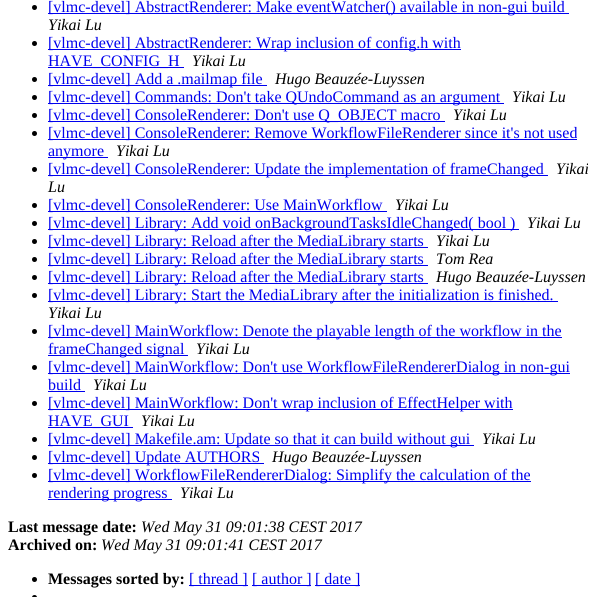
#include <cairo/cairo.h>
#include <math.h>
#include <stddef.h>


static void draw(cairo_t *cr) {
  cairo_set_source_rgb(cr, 1, 1, 1);
  cairo_paint(cr);
  cairo_set_source_rgb(cr, 0, 0, 0);
  cairo_arc(cr, 34.5, 7.5, 2.5, 0, 2 * M_PI);
  cairo_fill(cr);
  cairo_set_source_rgb(cr, 0, 0, 238 / 255.0);
  cairo_rectangle(cr, 48, 13, 521, 1);
  cairo_fill(cr);
  cairo_set_source_rgb(cr, 0, 0, 0);
  cairo_arc(cr, 34.5, 43.5, 2.5, 0, 2 * M_PI);
  cairo_fill(cr);
  cairo_set_source_rgb(cr, 0, 0, 238 / 255.0);
  cairo_rectangle(cr, 48, 49, 413, 1);
  cairo_fill(cr);
  cairo_rectangle(cr, 48, 67, 136, 1);
  cairo_fill(cr);
  cairo_set_source_rgb(cr, 0, 0, 0);
  cairo_arc(cr, 34.5, 79.5, 2.5, 0, 2 * M_PI);
  cairo_fill(cr);
  cairo_set_source_rgb(cr, 0, 0, 238 / 255.0);
  cairo_rectangle(cr, 48, 85, 219, 1);
  cairo_fill(cr);
  cairo_set_source_rgb(cr, 0, 0, 0);
  cairo_arc(cr, 34.5, 97.5, 2.5, 0, 2 * M_PI);
  cairo_fill(cr);
  cairo_set_source_rgb(cr, 0, 0, 238 / 255.0);
  cairo_rectangle(cr, 48, 103, 456, 1);
  cairo_fill(cr);
  cairo_set_source_rgb(cr, 0, 0, 0);
  cairo_arc(cr, 34.5, 115.5, 2.5, 0, 2 * M_PI);
  cairo_fill(cr);
  cairo_set_source_rgb(cr, 0, 0, 238 / 255.0);
  cairo_rectangle(cr, 48, 121, 397, 1);
  cairo_fill(cr);
  cairo_set_source_rgb(cr, 0, 0, 0);
  cairo_arc(cr, 34.5, 133.5, 2.5, 0, 2 * M_PI);
  cairo_fill(cr);
  cairo_set_source_rgb(cr, 0, 0, 238 / 255.0);
  cairo_rectangle(cr, 48, 139, 529, 1);
  cairo_fill(cr);
  cairo_rectangle(cr, 48, 157, 60, 1);
  cairo_fill(cr);
  cairo_set_source_rgb(cr, 0, 0, 0);
  cairo_arc(cr, 34.5, 169.5, 2.5, 0, 2 * M_PI);
  cairo_fill(cr);
  cairo_set_source_rgb(cr, 0, 0, 238 / 255.0);
  cairo_rectangle(cr, 48, 175, 500, 1);
  cairo_fill(cr);
  cairo_set_source_rgb(cr, 0, 0, 0);
  cairo_arc(cr, 34.5, 205.5, 2.5, 0, 2 * M_PI);
  cairo_fill(cr);
  cairo_set_source_rgb(cr, 0, 0, 238 / 255.0);
  cairo_rectangle(cr, 48, 211, 339, 1);
  cairo_fill(cr);
  cairo_set_source_rgb(cr, 0, 0, 0);
  cairo_arc(cr, 34.5, 223.5, 2.5, 0, 2 * M_PI);
  cairo_fill(cr);
  cairo_set_source_rgb(cr, 0, 0, 238 / 255.0);
  cairo_rectangle(cr, 48, 229, 471, 1);
  cairo_fill(cr);
  cairo_set_source_rgb(cr, 0, 0, 0);
  cairo_arc(cr, 34.5, 241.5, 2.5, 0, 2 * M_PI);
  cairo_fill(cr);
  cairo_set_source_rgb(cr, 0, 0, 238 / 255.0);
  cairo_rectangle(cr, 48, 247, 380, 1);
  cairo_fill(cr);
  cairo_set_source_rgb(cr, 0, 0, 0);
  cairo_arc(cr, 34.5, 259.5, 2.5, 0, 2 * M_PI);
  cairo_fill(cr);
  cairo_set_source_rgb(cr, 0, 0, 238 / 255.0);
  cairo_rectangle(cr, 48, 265, 380, 1);
  cairo_fill(cr);
  cairo_set_source_rgb(cr, 0, 0, 0);
  cairo_arc(cr, 34.5, 277.5, 2.5, 0, 2 * M_PI);
  cairo_fill(cr);
  cairo_set_source_rgb(cr, 0, 0, 238 / 255.0);
  cairo_rectangle(cr, 48, 283, 380, 1);
  cairo_fill(cr);
  cairo_set_source_rgb(cr, 0, 0, 0);
  cairo_arc(cr, 34.5, 295.5, 2.5, 0, 2 * M_PI);
  cairo_fill(cr);
  cairo_set_source_rgb(cr, 0, 0, 238 / 255.0);
  cairo_rectangle(cr, 48, 301, 510, 1);
  cairo_fill(cr);
  cairo_set_source_rgb(cr, 0, 0, 0);
  cairo_arc(cr, 34.5, 331.5, 2.5, 0, 2 * M_PI);
  cairo_fill(cr);
  cairo_set_source_rgb(cr, 0, 0, 238 / 255.0);
  cairo_rectangle(cr, 48, 337, 514, 1);
  cairo_fill(cr);
  cairo_rectangle(cr, 48, 355, 140, 1);
  cairo_fill(cr);
  cairo_set_source_rgb(cr, 0, 0, 0);
  cairo_arc(cr, 34.5, 367.5, 2.5, 0, 2 * M_PI);
  cairo_fill(cr);
  cairo_set_source_rgb(cr, 0, 0, 238 / 255.0);
  cairo_rectangle(cr, 48, 373, 522, 1);
  cairo_fill(cr);
  cairo_rectangle(cr, 48, 391, 37, 1);
  cairo_fill(cr);
  cairo_set_source_rgb(cr, 0, 0, 0);
  cairo_arc(cr, 34.5, 403.5, 2.5, 0, 2 * M_PI);
  cairo_fill(cr);
  cairo_set_source_rgb(cr, 0, 0, 238 / 255.0);
  cairo_rectangle(cr, 48, 409, 465, 1);
  cairo_fill(cr);
  cairo_rectangle(cr, 48, 427, 85, 1);
  cairo_fill(cr);
  cairo_set_source_rgb(cr, 0, 0, 0);
  cairo_arc(cr, 34.5, 439.5, 2.5, 0, 2 * M_PI);
  cairo_fill(cr);
  cairo_set_source_rgb(cr, 0, 0, 238 / 255.0);
  cairo_rectangle(cr, 48, 445, 426, 1);
  cairo_fill(cr);
  cairo_set_source_rgb(cr, 0, 0, 0);
  cairo_arc(cr, 34.5, 457.5, 2.5, 0, 2 * M_PI);
  cairo_fill(cr);
  cairo_set_source_rgb(cr, 0, 0, 238 / 255.0);
  cairo_rectangle(cr, 48, 463, 216, 1);
  cairo_fill(cr);
  cairo_set_source_rgb(cr, 0, 0, 0);
  cairo_arc(cr, 34.5, 475.5, 2.5, 0, 2 * M_PI);
  cairo_fill(cr);
  cairo_set_source_rgb(cr, 0, 0, 238 / 255.0);
  cairo_rectangle(cr, 48, 481, 483, 1);
  cairo_fill(cr);
  cairo_rectangle(cr, 48, 499, 124, 1);
  cairo_fill(cr);
  cairo_set_source_rgb(cr, 0, 0, 0);
  cairo_arc(cr, 34.5, 579.5, 2.5, 0, 2 * M_PI);
  cairo_fill(cr);
  cairo_set_source_rgb(cr, 0, 0, 238 / 255.0);
  cairo_rectangle(cr, 189, 585, 59, 1);
  cairo_fill(cr);
  cairo_rectangle(cr, 252, 585, 59, 1);
  cairo_fill(cr);
  cairo_rectangle(cr, 315, 585, 45, 1);
  cairo_fill(cr);
  cairo_set_source_rgb(cr, 0, 0, 0);
  cairo_arc(cr, 34.5, 597.5, 2.5, 0, 2 * M_PI);
  cairo_fill(cr);
  cairo_select_font_face(cr, "Liberation Serif", CAIRO_FONT_SLANT_NORMAL, CAIRO_FONT_WEIGHT_NORMAL);
  cairo_set_font_size(cr, 16);
  cairo_set_source_rgb(cr, 0, 0, 238 / 255.0);
  cairo_move_to(cr, 48, 12);
  cairo_show_text(cr, "[vlmc-devel] AbstractRenderer: Make eventWatcher() available in non-gui build");
  cairo_select_font_face(cr, "Liberation Serif", CAIRO_FONT_SLANT_ITALIC, CAIRO_FONT_WEIGHT_NORMAL);
  cairo_set_source_rgb(cr, 0, 0, 0);
  cairo_move_to(cr, 48, 30);
  cairo_show_text(cr, "Yikai Lu");
  cairo_select_font_face(cr, "Liberation Serif", CAIRO_FONT_SLANT_NORMAL, CAIRO_FONT_WEIGHT_NORMAL);
  cairo_set_source_rgb(cr, 0, 0, 238 / 255.0);
  cairo_move_to(cr, 48, 48);
  cairo_show_text(cr, "[vlmc-devel] AbstractRenderer: Wrap inclusion of config.h with");
  cairo_move_to(cr, 48, 66);
  cairo_show_text(cr, "HAVE_CONFIG_H");
  cairo_select_font_face(cr, "Liberation Serif", CAIRO_FONT_SLANT_ITALIC, CAIRO_FONT_WEIGHT_NORMAL);
  cairo_set_source_rgb(cr, 0, 0, 0);
  cairo_move_to(cr, 192, 66);
  cairo_show_text(cr, "Yikai Lu");
  cairo_select_font_face(cr, "Liberation Serif", CAIRO_FONT_SLANT_NORMAL, CAIRO_FONT_WEIGHT_NORMAL);
  cairo_set_source_rgb(cr, 0, 0, 238 / 255.0);
  cairo_move_to(cr, 48, 84);
  cairo_show_text(cr, "[vlmc-devel] Add a .mailmap file");
  cairo_select_font_face(cr, "Liberation Serif", CAIRO_FONT_SLANT_ITALIC, CAIRO_FONT_WEIGHT_NORMAL);
  cairo_set_source_rgb(cr, 0, 0, 0);
  cairo_move_to(cr, 275, 84);
  cairo_show_text(cr, "Hugo Beauzée-Luyssen");
  cairo_select_font_face(cr, "Liberation Serif", CAIRO_FONT_SLANT_NORMAL, CAIRO_FONT_WEIGHT_NORMAL);
  cairo_set_source_rgb(cr, 0, 0, 238 / 255.0);
  cairo_move_to(cr, 48, 102);
  cairo_show_text(cr, "[vlmc-devel] Commands: Don't take QUndoCommand as an argument");
  cairo_select_font_face(cr, "Liberation Serif", CAIRO_FONT_SLANT_ITALIC, CAIRO_FONT_WEIGHT_NORMAL);
  cairo_set_source_rgb(cr, 0, 0, 0);
  cairo_move_to(cr, 512, 102);
  cairo_show_text(cr, "Yikai Lu");
  cairo_select_font_face(cr, "Liberation Serif", CAIRO_FONT_SLANT_NORMAL, CAIRO_FONT_WEIGHT_NORMAL);
  cairo_set_source_rgb(cr, 0, 0, 238 / 255.0);
  cairo_move_to(cr, 48, 120);
  cairo_show_text(cr, "[vlmc-devel] ConsoleRenderer: Don't use Q_OBJECT macro");
  cairo_select_font_face(cr, "Liberation Serif", CAIRO_FONT_SLANT_ITALIC, CAIRO_FONT_WEIGHT_NORMAL);
  cairo_set_source_rgb(cr, 0, 0, 0);
  cairo_move_to(cr, 453, 120);
  cairo_show_text(cr, "Yikai Lu");
  cairo_select_font_face(cr, "Liberation Serif", CAIRO_FONT_SLANT_NORMAL, CAIRO_FONT_WEIGHT_NORMAL);
  cairo_set_source_rgb(cr, 0, 0, 238 / 255.0);
  cairo_move_to(cr, 48, 138);
  cairo_show_text(cr, "[vlmc-devel] ConsoleRenderer: Remove WorkflowFileRenderer since it's not used");
  cairo_move_to(cr, 48, 156);
  cairo_show_text(cr, "anymore");
  cairo_select_font_face(cr, "Liberation Serif", CAIRO_FONT_SLANT_ITALIC, CAIRO_FONT_WEIGHT_NORMAL);
  cairo_set_source_rgb(cr, 0, 0, 0);
  cairo_move_to(cr, 116, 156);
  cairo_show_text(cr, "Yikai Lu");
  cairo_select_font_face(cr, "Liberation Serif", CAIRO_FONT_SLANT_NORMAL, CAIRO_FONT_WEIGHT_NORMAL);
  cairo_set_source_rgb(cr, 0, 0, 238 / 255.0);
  cairo_move_to(cr, 48, 174);
  cairo_show_text(cr, "[vlmc-devel] ConsoleRenderer: Update the implementation of frameChanged");
  cairo_select_font_face(cr, "Liberation Serif", CAIRO_FONT_SLANT_ITALIC, CAIRO_FONT_WEIGHT_NORMAL);
  cairo_set_source_rgb(cr, 0, 0, 0);
  cairo_move_to(cr, 556, 174);
  cairo_show_text(cr, "Yikai");
  cairo_move_to(cr, 48, 192);
  cairo_show_text(cr, "Lu");
  cairo_select_font_face(cr, "Liberation Serif", CAIRO_FONT_SLANT_NORMAL, CAIRO_FONT_WEIGHT_NORMAL);
  cairo_set_source_rgb(cr, 0, 0, 238 / 255.0);
  cairo_move_to(cr, 48, 210);
  cairo_show_text(cr, "[vlmc-devel] ConsoleRenderer: Use MainWorkflow");
  cairo_select_font_face(cr, "Liberation Serif", CAIRO_FONT_SLANT_ITALIC, CAIRO_FONT_WEIGHT_NORMAL);
  cairo_set_source_rgb(cr, 0, 0, 0);
  cairo_move_to(cr, 395, 210);
  cairo_show_text(cr, "Yikai Lu");
  cairo_select_font_face(cr, "Liberation Serif", CAIRO_FONT_SLANT_NORMAL, CAIRO_FONT_WEIGHT_NORMAL);
  cairo_set_source_rgb(cr, 0, 0, 238 / 255.0);
  cairo_move_to(cr, 48, 228);
  cairo_show_text(cr, "[vlmc-devel] Library: Add void onBackgroundTasksIdleChanged( bool )");
  cairo_select_font_face(cr, "Liberation Serif", CAIRO_FONT_SLANT_ITALIC, CAIRO_FONT_WEIGHT_NORMAL);
  cairo_set_source_rgb(cr, 0, 0, 0);
  cairo_move_to(cr, 527, 228);
  cairo_show_text(cr, "Yikai Lu");
  cairo_select_font_face(cr, "Liberation Serif", CAIRO_FONT_SLANT_NORMAL, CAIRO_FONT_WEIGHT_NORMAL);
  cairo_set_source_rgb(cr, 0, 0, 238 / 255.0);
  cairo_move_to(cr, 48, 246);
  cairo_show_text(cr, "[vlmc-devel] Library: Reload after the MediaLibrary starts");
  cairo_select_font_face(cr, "Liberation Serif", CAIRO_FONT_SLANT_ITALIC, CAIRO_FONT_WEIGHT_NORMAL);
  cairo_set_source_rgb(cr, 0, 0, 0);
  cairo_move_to(cr, 436, 246);
  cairo_show_text(cr, "Yikai Lu");
  cairo_select_font_face(cr, "Liberation Serif", CAIRO_FONT_SLANT_NORMAL, CAIRO_FONT_WEIGHT_NORMAL);
  cairo_set_source_rgb(cr, 0, 0, 238 / 255.0);
  cairo_move_to(cr, 48, 264);
  cairo_show_text(cr, "[vlmc-devel] Library: Reload after the MediaLibrary starts");
  cairo_select_font_face(cr, "Liberation Serif", CAIRO_FONT_SLANT_ITALIC, CAIRO_FONT_WEIGHT_NORMAL);
  cairo_set_source_rgb(cr, 0, 0, 0);
  cairo_move_to(cr, 436, 264);
  cairo_show_text(cr, "Tom Rea");
  cairo_select_font_face(cr, "Liberation Serif", CAIRO_FONT_SLANT_NORMAL, CAIRO_FONT_WEIGHT_NORMAL);
  cairo_set_source_rgb(cr, 0, 0, 238 / 255.0);
  cairo_move_to(cr, 48, 282);
  cairo_show_text(cr, "[vlmc-devel] Library: Reload after the MediaLibrary starts");
  cairo_select_font_face(cr, "Liberation Serif", CAIRO_FONT_SLANT_ITALIC, CAIRO_FONT_WEIGHT_NORMAL);
  cairo_set_source_rgb(cr, 0, 0, 0);
  cairo_move_to(cr, 436, 282);
  cairo_show_text(cr, "Hugo Beauzée-Luyssen");
  cairo_select_font_face(cr, "Liberation Serif", CAIRO_FONT_SLANT_NORMAL, CAIRO_FONT_WEIGHT_NORMAL);
  cairo_set_source_rgb(cr, 0, 0, 238 / 255.0);
  cairo_move_to(cr, 48, 300);
  cairo_show_text(cr, "[vlmc-devel] Library: Start the MediaLibrary after the initialization is finished.");
  cairo_select_font_face(cr, "Liberation Serif", CAIRO_FONT_SLANT_ITALIC, CAIRO_FONT_WEIGHT_NORMAL);
  cairo_set_source_rgb(cr, 0, 0, 0);
  cairo_move_to(cr, 48, 318);
  cairo_show_text(cr, "Yikai Lu");
  cairo_select_font_face(cr, "Liberation Serif", CAIRO_FONT_SLANT_NORMAL, CAIRO_FONT_WEIGHT_NORMAL);
  cairo_set_source_rgb(cr, 0, 0, 238 / 255.0);
  cairo_move_to(cr, 48, 336);
  cairo_show_text(cr, "[vlmc-devel] MainWorkflow: Denote the playable length of the workflow in the");
  cairo_move_to(cr, 48, 354);
  cairo_show_text(cr, "frameChanged signal");
  cairo_select_font_face(cr, "Liberation Serif", CAIRO_FONT_SLANT_ITALIC, CAIRO_FONT_WEIGHT_NORMAL);
  cairo_set_source_rgb(cr, 0, 0, 0);
  cairo_move_to(cr, 196, 354);
  cairo_show_text(cr, "Yikai Lu");
  cairo_select_font_face(cr, "Liberation Serif", CAIRO_FONT_SLANT_NORMAL, CAIRO_FONT_WEIGHT_NORMAL);
  cairo_set_source_rgb(cr, 0, 0, 238 / 255.0);
  cairo_move_to(cr, 48, 372);
  cairo_show_text(cr, "[vlmc-devel] MainWorkflow: Don't use WorkflowFileRendererDialog in non-gui");
  cairo_move_to(cr, 48, 390);
  cairo_show_text(cr, "build");
  cairo_select_font_face(cr, "Liberation Serif", CAIRO_FONT_SLANT_ITALIC, CAIRO_FONT_WEIGHT_NORMAL);
  cairo_set_source_rgb(cr, 0, 0, 0);
  cairo_move_to(cr, 93, 390);
  cairo_show_text(cr, "Yikai Lu");
  cairo_select_font_face(cr, "Liberation Serif", CAIRO_FONT_SLANT_NORMAL, CAIRO_FONT_WEIGHT_NORMAL);
  cairo_set_source_rgb(cr, 0, 0, 238 / 255.0);
  cairo_move_to(cr, 48, 408);
  cairo_show_text(cr, "[vlmc-devel] MainWorkflow: Don't wrap inclusion of EffectHelper with");
  cairo_move_to(cr, 48, 426);
  cairo_show_text(cr, "HAVE_GUI");
  cairo_select_font_face(cr, "Liberation Serif", CAIRO_FONT_SLANT_ITALIC, CAIRO_FONT_WEIGHT_NORMAL);
  cairo_set_source_rgb(cr, 0, 0, 0);
  cairo_move_to(cr, 141, 426);
  cairo_show_text(cr, "Yikai Lu");
  cairo_select_font_face(cr, "Liberation Serif", CAIRO_FONT_SLANT_NORMAL, CAIRO_FONT_WEIGHT_NORMAL);
  cairo_set_source_rgb(cr, 0, 0, 238 / 255.0);
  cairo_move_to(cr, 48, 444);
  cairo_show_text(cr, "[vlmc-devel] Makefile.am: Update so that it can build without gui");
  cairo_select_font_face(cr, "Liberation Serif", CAIRO_FONT_SLANT_ITALIC, CAIRO_FONT_WEIGHT_NORMAL);
  cairo_set_source_rgb(cr, 0, 0, 0);
  cairo_move_to(cr, 482, 444);
  cairo_show_text(cr, "Yikai Lu");
  cairo_select_font_face(cr, "Liberation Serif", CAIRO_FONT_SLANT_NORMAL, CAIRO_FONT_WEIGHT_NORMAL);
  cairo_set_source_rgb(cr, 0, 0, 238 / 255.0);
  cairo_move_to(cr, 48, 462);
  cairo_show_text(cr, "[vlmc-devel] Update AUTHORS");
  cairo_select_font_face(cr, "Liberation Serif", CAIRO_FONT_SLANT_ITALIC, CAIRO_FONT_WEIGHT_NORMAL);
  cairo_set_source_rgb(cr, 0, 0, 0);
  cairo_move_to(cr, 272, 462);
  cairo_show_text(cr, "Hugo Beauzée-Luyssen");
  cairo_select_font_face(cr, "Liberation Serif", CAIRO_FONT_SLANT_NORMAL, CAIRO_FONT_WEIGHT_NORMAL);
  cairo_set_source_rgb(cr, 0, 0, 238 / 255.0);
  cairo_move_to(cr, 48, 480);
  cairo_show_text(cr, "[vlmc-devel] WorkflowFileRendererDialog: Simplify the calculation of the");
  cairo_move_to(cr, 48, 498);
  cairo_show_text(cr, "rendering progress");
  cairo_select_font_face(cr, "Liberation Serif", CAIRO_FONT_SLANT_ITALIC, CAIRO_FONT_WEIGHT_NORMAL);
  cairo_set_source_rgb(cr, 0, 0, 0);
  cairo_move_to(cr, 180, 498);
  cairo_show_text(cr, "Yikai Lu");
  cairo_select_font_face(cr, "Liberation Serif", CAIRO_FONT_SLANT_NORMAL, CAIRO_FONT_WEIGHT_BOLD);
  cairo_move_to(cr, 8, 532);
  cairo_show_text(cr, "Last message date:");
  cairo_select_font_face(cr, "Liberation Serif", CAIRO_FONT_SLANT_ITALIC, CAIRO_FONT_WEIGHT_NORMAL);
  cairo_move_to(cr, 141, 532);
  cairo_show_text(cr, "Wed May 31 09:01:38 CEST 2017");
  cairo_select_font_face(cr, "Liberation Serif", CAIRO_FONT_SLANT_NORMAL, CAIRO_FONT_WEIGHT_BOLD);
  cairo_move_to(cr, 8, 550);
  cairo_show_text(cr, "Archived on:");
  cairo_select_font_face(cr, "Liberation Serif", CAIRO_FONT_SLANT_ITALIC, CAIRO_FONT_WEIGHT_NORMAL);
  cairo_move_to(cr, 101, 550);
  cairo_show_text(cr, "Wed May 31 09:01:41 CEST 2017");
  cairo_select_font_face(cr, "Liberation Serif", CAIRO_FONT_SLANT_NORMAL, CAIRO_FONT_WEIGHT_BOLD);
  cairo_move_to(cr, 48, 584);
  cairo_show_text(cr, "Messages sorted by:");
  cairo_select_font_face(cr, "Liberation Serif", CAIRO_FONT_SLANT_NORMAL, CAIRO_FONT_WEIGHT_NORMAL);
  cairo_set_source_rgb(cr, 0, 0, 238 / 255.0);
  cairo_move_to(cr, 189, 584);
  cairo_show_text(cr, "[ thread ]");
  cairo_move_to(cr, 252, 584);
  cairo_show_text(cr, "[ author ]");
  cairo_move_to(cr, 315, 584);
  cairo_show_text(cr, "[ date ]");
}

int main(void) {
  cairo_surface_t *surface = cairo_image_surface_create(CAIRO_FORMAT_RGB24, 599, 597);
  cairo_t *cr = cairo_create(surface);
  cairo_font_options_t *options = cairo_font_options_create();
  cairo_font_options_set_hint_metrics(options, CAIRO_HINT_METRICS_OFF);
  cairo_font_options_set_hint_style(options, CAIRO_HINT_STYLE_NONE);
  cairo_set_font_options(cr, options);
  cairo_set_miter_limit(cr, 4);
  draw(cr);
  cairo_surface_write_to_png(surface, "out.png");
  cairo_font_options_destroy(options);
  cairo_destroy(cr);
  cairo_surface_destroy(surface);
  return 0;
}
